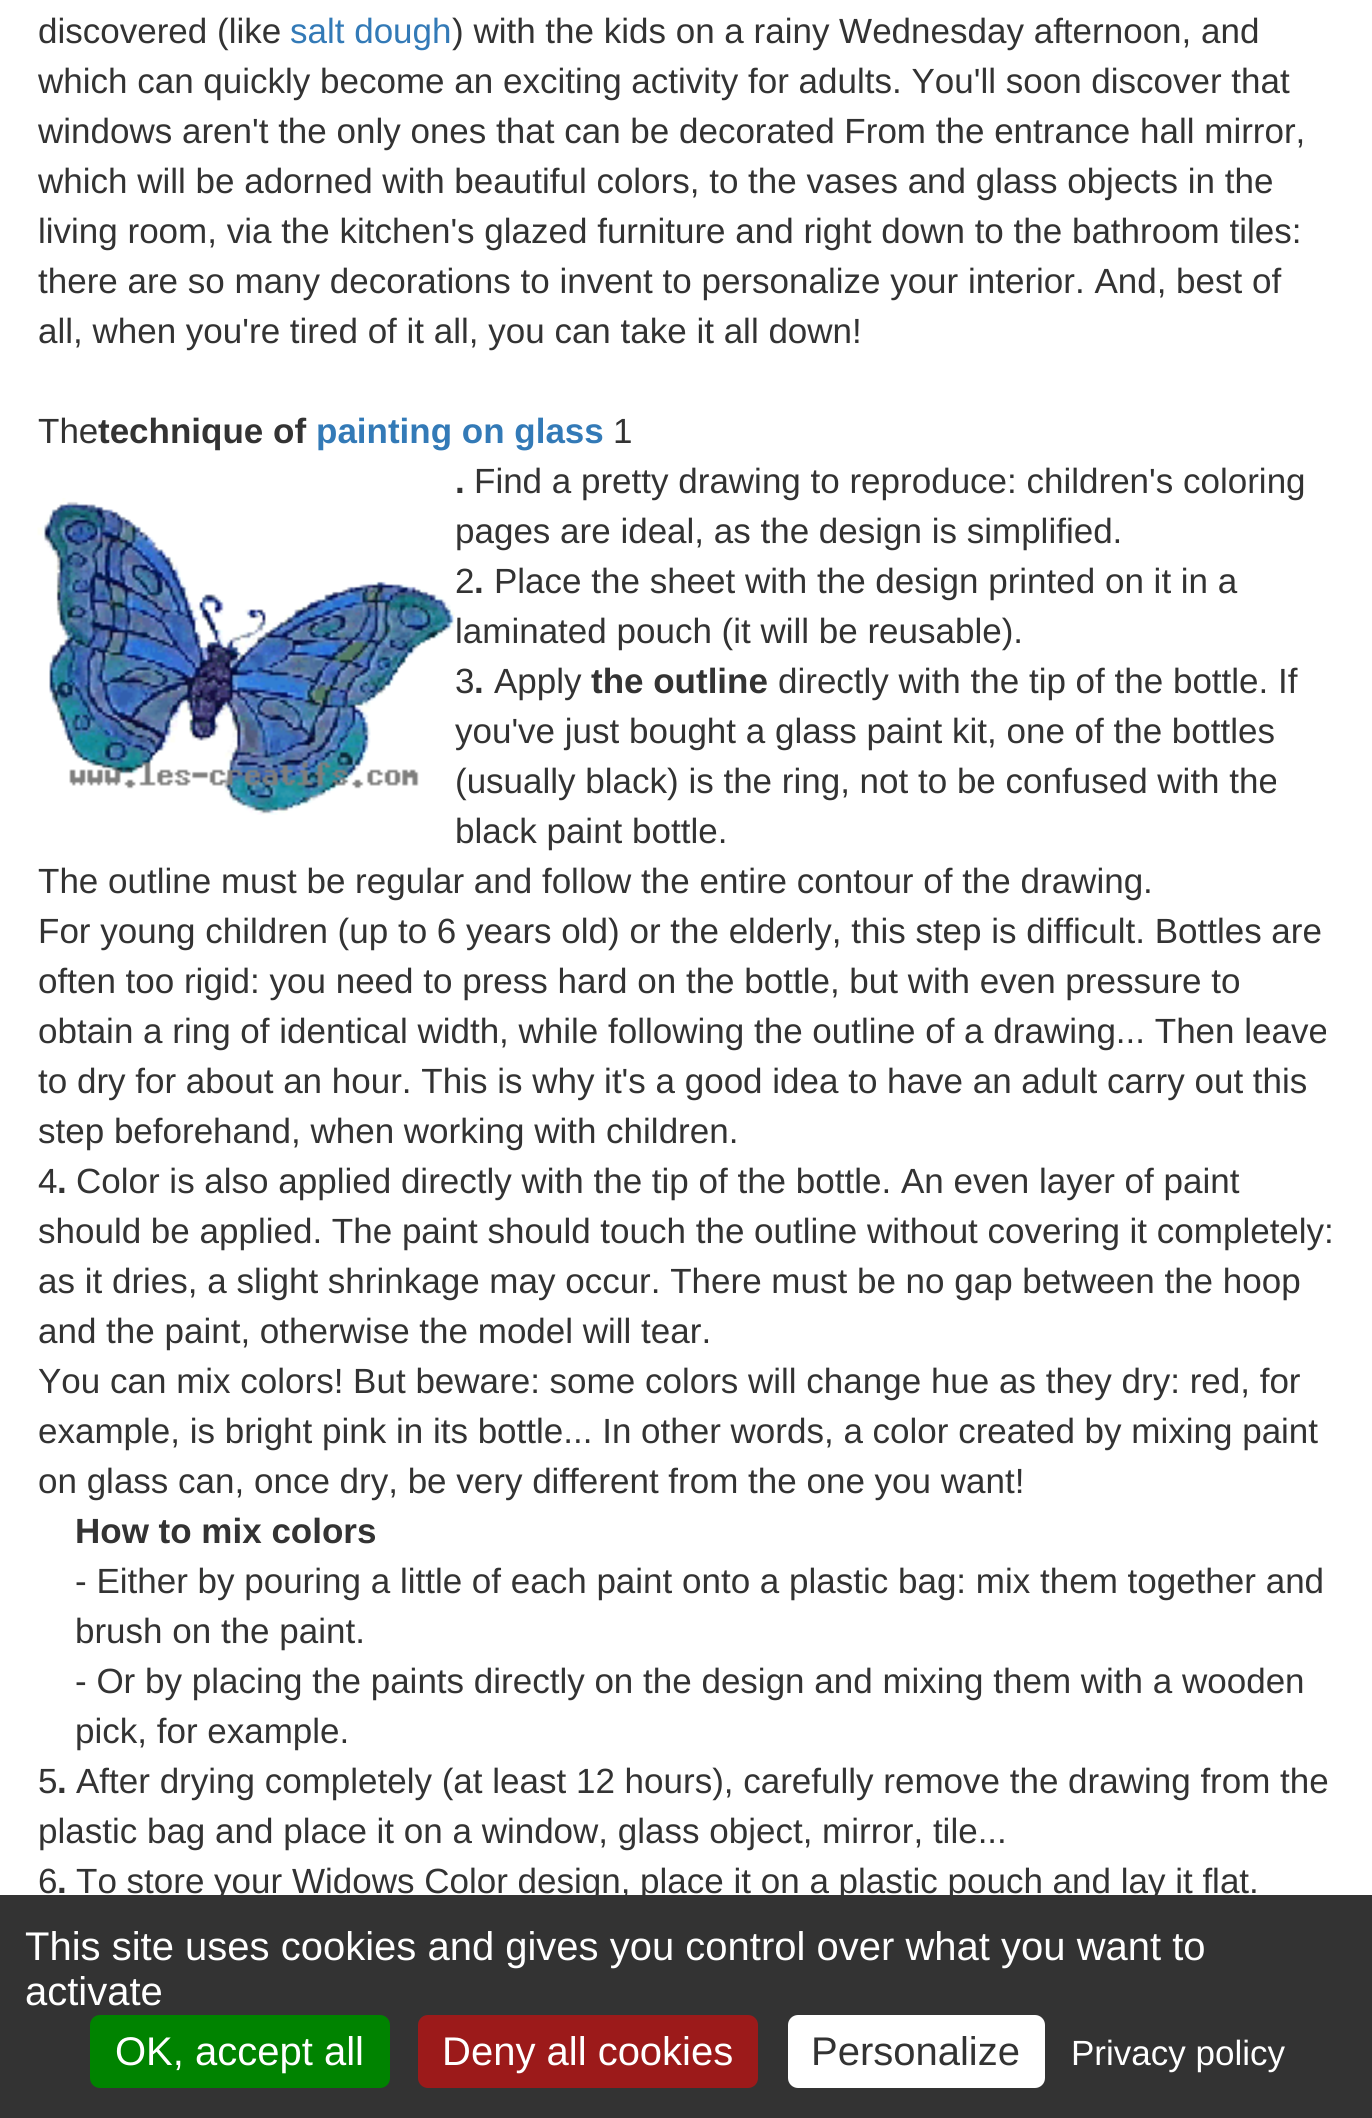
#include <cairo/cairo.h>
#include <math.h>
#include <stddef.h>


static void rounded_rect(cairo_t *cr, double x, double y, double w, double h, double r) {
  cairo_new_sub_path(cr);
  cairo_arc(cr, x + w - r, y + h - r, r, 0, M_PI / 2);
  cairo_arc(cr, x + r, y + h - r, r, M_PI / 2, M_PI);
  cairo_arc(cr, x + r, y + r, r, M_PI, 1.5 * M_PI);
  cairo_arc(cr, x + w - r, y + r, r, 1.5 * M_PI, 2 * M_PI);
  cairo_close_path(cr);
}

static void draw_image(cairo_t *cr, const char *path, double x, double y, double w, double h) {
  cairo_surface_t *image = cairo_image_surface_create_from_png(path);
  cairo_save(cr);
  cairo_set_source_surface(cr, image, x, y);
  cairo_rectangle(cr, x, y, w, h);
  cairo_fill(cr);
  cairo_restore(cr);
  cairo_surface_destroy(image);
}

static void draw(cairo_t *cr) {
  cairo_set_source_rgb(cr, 1, 1, 1);
  cairo_paint(cr);
  draw_image(cr, "images/1.png", 37, 498, 418, 317);
  cairo_set_source_rgb(cr, 51 / 255.0, 51 / 255.0, 51 / 255.0);
  cairo_rectangle(cr, 0, 1895, 1372, 223);
  cairo_fill(cr);
  cairo_set_source_rgb(cr, 0, 131 / 255.0, 0);
  rounded_rect(cr, 90, 2015, 300, 73, 10);
  cairo_fill(cr);
  cairo_set_source_rgb(cr, 156 / 255.0, 26 / 255.0, 26 / 255.0);
  rounded_rect(cr, 418, 2015, 340, 73, 10);
  cairo_fill(cr);
  cairo_set_source_rgb(cr, 1, 1, 1);
  rounded_rect(cr, 788, 2015, 257, 73, 10);
  cairo_fill(cr);
  cairo_select_font_face(cr, "Liberation Sans", CAIRO_FONT_SLANT_NORMAL, CAIRO_FONT_WEIGHT_NORMAL);
  cairo_set_font_size(cr, 35);
  cairo_set_source_rgb(cr, 51 / 255.0, 51 / 255.0, 51 / 255.0);
  cairo_move_to(cr, 38, 43);
  cairo_show_text(cr, "discovered (like");
  cairo_set_source_rgb(cr, 51 / 255.0, 122 / 255.0, 183 / 255.0);
  cairo_move_to(cr, 290, 43);
  cairo_show_text(cr, "salt dough");
  cairo_set_source_rgb(cr, 51 / 255.0, 51 / 255.0, 51 / 255.0);
  cairo_move_to(cr, 452, 43);
  cairo_show_text(cr, ") with the kids on a rainy Wednesday afternoon, and");
  cairo_move_to(cr, 38, 93);
  cairo_show_text(cr, "which can quickly become an exciting activity for adults. You'll soon discover that");
  cairo_move_to(cr, 38, 143);
  cairo_show_text(cr, "windows aren't the only ones that can be decorated From the entrance hall mirror,");
  cairo_move_to(cr, 38, 193);
  cairo_show_text(cr, "which will be adorned with beautiful colors, to the vases and glass objects in the");
  cairo_move_to(cr, 38, 243);
  cairo_show_text(cr, "living room, via the kitchen's glazed furniture and right down to the bathroom tiles:");
  cairo_move_to(cr, 38, 293);
  cairo_show_text(cr, "there are so many decorations to invent to personalize your interior. And, best of");
  cairo_move_to(cr, 38, 343);
  cairo_show_text(cr, "all, when you're tired of it all, you can take it all down!");
  cairo_move_to(cr, 38, 443);
  cairo_show_text(cr, "The");
  cairo_select_font_face(cr, "Liberation Sans", CAIRO_FONT_SLANT_NORMAL, CAIRO_FONT_WEIGHT_BOLD);
  cairo_move_to(cr, 98, 443);
  cairo_show_text(cr, "technique of");
  cairo_set_source_rgb(cr, 51 / 255.0, 122 / 255.0, 183 / 255.0);
  cairo_move_to(cr, 316, 443);
  cairo_show_text(cr, "painting on glass");
  cairo_select_font_face(cr, "Liberation Sans", CAIRO_FONT_SLANT_NORMAL, CAIRO_FONT_WEIGHT_NORMAL);
  cairo_set_source_rgb(cr, 51 / 255.0, 51 / 255.0, 51 / 255.0);
  cairo_move_to(cr, 613, 443);
  cairo_show_text(cr, "1");
  cairo_select_font_face(cr, "Liberation Sans", CAIRO_FONT_SLANT_NORMAL, CAIRO_FONT_WEIGHT_BOLD);
  cairo_move_to(cr, 455, 493);
  cairo_show_text(cr, ".");
  cairo_select_font_face(cr, "Liberation Sans", CAIRO_FONT_SLANT_NORMAL, CAIRO_FONT_WEIGHT_NORMAL);
  cairo_move_to(cr, 474, 493);
  cairo_show_text(cr, "Find a pretty drawing to reproduce: children's coloring");
  cairo_move_to(cr, 455, 543);
  cairo_show_text(cr, "pages are ideal, as the design is simplified.");
  cairo_move_to(cr, 455, 593);
  cairo_show_text(cr, "2");
  cairo_select_font_face(cr, "Liberation Sans", CAIRO_FONT_SLANT_NORMAL, CAIRO_FONT_WEIGHT_BOLD);
  cairo_move_to(cr, 474, 593);
  cairo_show_text(cr, ".");
  cairo_select_font_face(cr, "Liberation Sans", CAIRO_FONT_SLANT_NORMAL, CAIRO_FONT_WEIGHT_NORMAL);
  cairo_move_to(cr, 494, 593);
  cairo_show_text(cr, "Place the sheet with the design printed on it in a");
  cairo_move_to(cr, 455, 643);
  cairo_show_text(cr, "laminated pouch (it will be reusable).");
  cairo_move_to(cr, 455, 693);
  cairo_show_text(cr, "3");
  cairo_select_font_face(cr, "Liberation Sans", CAIRO_FONT_SLANT_NORMAL, CAIRO_FONT_WEIGHT_BOLD);
  cairo_move_to(cr, 474, 693);
  cairo_show_text(cr, ".");
  cairo_select_font_face(cr, "Liberation Sans", CAIRO_FONT_SLANT_NORMAL, CAIRO_FONT_WEIGHT_NORMAL);
  cairo_move_to(cr, 494, 693);
  cairo_show_text(cr, "Apply");
  cairo_select_font_face(cr, "Liberation Sans", CAIRO_FONT_SLANT_NORMAL, CAIRO_FONT_WEIGHT_BOLD);
  cairo_move_to(cr, 591, 693);
  cairo_show_text(cr, "the outline");
  cairo_select_font_face(cr, "Liberation Sans", CAIRO_FONT_SLANT_NORMAL, CAIRO_FONT_WEIGHT_NORMAL);
  cairo_move_to(cr, 778, 693);
  cairo_show_text(cr, "directly with the tip of the bottle. If");
  cairo_move_to(cr, 455, 743);
  cairo_show_text(cr, "you've just bought a glass paint kit, one of the bottles");
  cairo_move_to(cr, 455, 793);
  cairo_show_text(cr, "(usually black) is the ring, not to be confused with the");
  cairo_move_to(cr, 455, 843);
  cairo_show_text(cr, "black paint bottle.");
  cairo_move_to(cr, 38, 893);
  cairo_show_text(cr, "The outline must be regular and follow the entire contour of the drawing.");
  cairo_move_to(cr, 38, 943);
  cairo_show_text(cr, "For young children (up to 6 years old) or the elderly, this step is difficult. Bottles are");
  cairo_move_to(cr, 38, 993);
  cairo_show_text(cr, "often too rigid: you need to press hard on the bottle, but with even pressure to");
  cairo_move_to(cr, 38, 1043);
  cairo_show_text(cr, "obtain a ring of identical width, while following the outline of a drawing... Then leave");
  cairo_move_to(cr, 38, 1093);
  cairo_show_text(cr, "to dry for about an hour. This is why it's a good idea to have an adult carry out this");
  cairo_move_to(cr, 38, 1143);
  cairo_show_text(cr, "step beforehand, when working with children.");
  cairo_move_to(cr, 38, 1193);
  cairo_show_text(cr, "4");
  cairo_select_font_face(cr, "Liberation Sans", CAIRO_FONT_SLANT_NORMAL, CAIRO_FONT_WEIGHT_BOLD);
  cairo_move_to(cr, 57, 1193);
  cairo_show_text(cr, ".");
  cairo_select_font_face(cr, "Liberation Sans", CAIRO_FONT_SLANT_NORMAL, CAIRO_FONT_WEIGHT_NORMAL);
  cairo_move_to(cr, 76, 1193);
  cairo_show_text(cr, "Color is also applied directly with the tip of the bottle. An even layer of paint");
  cairo_move_to(cr, 38, 1243);
  cairo_show_text(cr, "should be applied. The paint should touch the outline without covering it completely:");
  cairo_move_to(cr, 38, 1293);
  cairo_show_text(cr, "as it dries, a slight shrinkage may occur. There must be no gap between the hoop");
  cairo_move_to(cr, 38, 1343);
  cairo_show_text(cr, "and the paint, otherwise the model will tear.");
  cairo_move_to(cr, 38, 1393);
  cairo_show_text(cr, "You can mix colors! But beware: some colors will change hue as they dry: red, for");
  cairo_move_to(cr, 38, 1443);
  cairo_show_text(cr, "example, is bright pink in its bottle... In other words, a color created by mixing paint");
  cairo_move_to(cr, 38, 1493);
  cairo_show_text(cr, "on glass can, once dry, be very different from the one you want!");
  cairo_select_font_face(cr, "Liberation Sans", CAIRO_FONT_SLANT_NORMAL, CAIRO_FONT_WEIGHT_BOLD);
  cairo_move_to(cr, 75, 1543);
  cairo_show_text(cr, "How to mix colors");
  cairo_select_font_face(cr, "Liberation Sans", CAIRO_FONT_SLANT_NORMAL, CAIRO_FONT_WEIGHT_NORMAL);
  cairo_move_to(cr, 75, 1593);
  cairo_show_text(cr, "- Either by pouring a little of each paint onto a plastic bag: mix them together and");
  cairo_move_to(cr, 75, 1643);
  cairo_show_text(cr, "brush on the paint.");
  cairo_move_to(cr, 75, 1693);
  cairo_show_text(cr, "- Or by placing the paints directly on the design and mixing them with a wooden");
  cairo_move_to(cr, 75, 1743);
  cairo_show_text(cr, "pick, for example.");
  cairo_move_to(cr, 38, 1793);
  cairo_show_text(cr, "5");
  cairo_select_font_face(cr, "Liberation Sans", CAIRO_FONT_SLANT_NORMAL, CAIRO_FONT_WEIGHT_BOLD);
  cairo_move_to(cr, 57, 1793);
  cairo_show_text(cr, ".");
  cairo_select_font_face(cr, "Liberation Sans", CAIRO_FONT_SLANT_NORMAL, CAIRO_FONT_WEIGHT_NORMAL);
  cairo_move_to(cr, 76, 1793);
  cairo_show_text(cr, "After drying completely (at least 12 hours), carefully remove the drawing from the");
  cairo_move_to(cr, 38, 1843);
  cairo_show_text(cr, "plastic bag and place it on a window, glass object, mirror, tile...");
  cairo_move_to(cr, 38, 1893);
  cairo_show_text(cr, "6");
  cairo_select_font_face(cr, "Liberation Sans", CAIRO_FONT_SLANT_NORMAL, CAIRO_FONT_WEIGHT_BOLD);
  cairo_move_to(cr, 57, 1893);
  cairo_show_text(cr, ".");
  cairo_select_font_face(cr, "Liberation Sans", CAIRO_FONT_SLANT_NORMAL, CAIRO_FONT_WEIGHT_NORMAL);
  cairo_move_to(cr, 76, 1893);
  cairo_show_text(cr, "To store your Widows Color design, place it on a plastic pouch and lay it flat.");
  cairo_set_font_size(cr, 40);
  cairo_set_source_rgb(cr, 1, 1, 1);
  cairo_move_to(cr, 25, 1960);
  cairo_show_text(cr, "This site uses cookies and gives you control over what you want to");
  cairo_move_to(cr, 25, 2005);
  cairo_show_text(cr, "activate");
  cairo_move_to(cr, 115, 2065);
  cairo_show_text(cr, "OK, accept all");
  cairo_move_to(cr, 442, 2065);
  cairo_show_text(cr, "Deny all cookies");
  cairo_set_source_rgb(cr, 51 / 255.0, 51 / 255.0, 51 / 255.0);
  cairo_move_to(cr, 811, 2065);
  cairo_show_text(cr, "Personalize");
  cairo_set_font_size(cr, 35);
  cairo_set_source_rgb(cr, 1, 1, 1);
  cairo_move_to(cr, 1071, 2065);
  cairo_show_text(cr, "Privacy policy");
}

int main(void) {
  cairo_surface_t *surface = cairo_image_surface_create(CAIRO_FORMAT_RGB24, 1372, 2118);
  cairo_t *cr = cairo_create(surface);
  cairo_font_options_t *options = cairo_font_options_create();
  cairo_font_options_set_hint_metrics(options, CAIRO_HINT_METRICS_OFF);
  cairo_font_options_set_hint_style(options, CAIRO_HINT_STYLE_NONE);
  cairo_set_font_options(cr, options);
  cairo_set_miter_limit(cr, 4);
  draw(cr);
  cairo_surface_write_to_png(surface, "out.png");
  cairo_font_options_destroy(options);
  cairo_destroy(cr);
  cairo_surface_destroy(surface);
  return 0;
}
